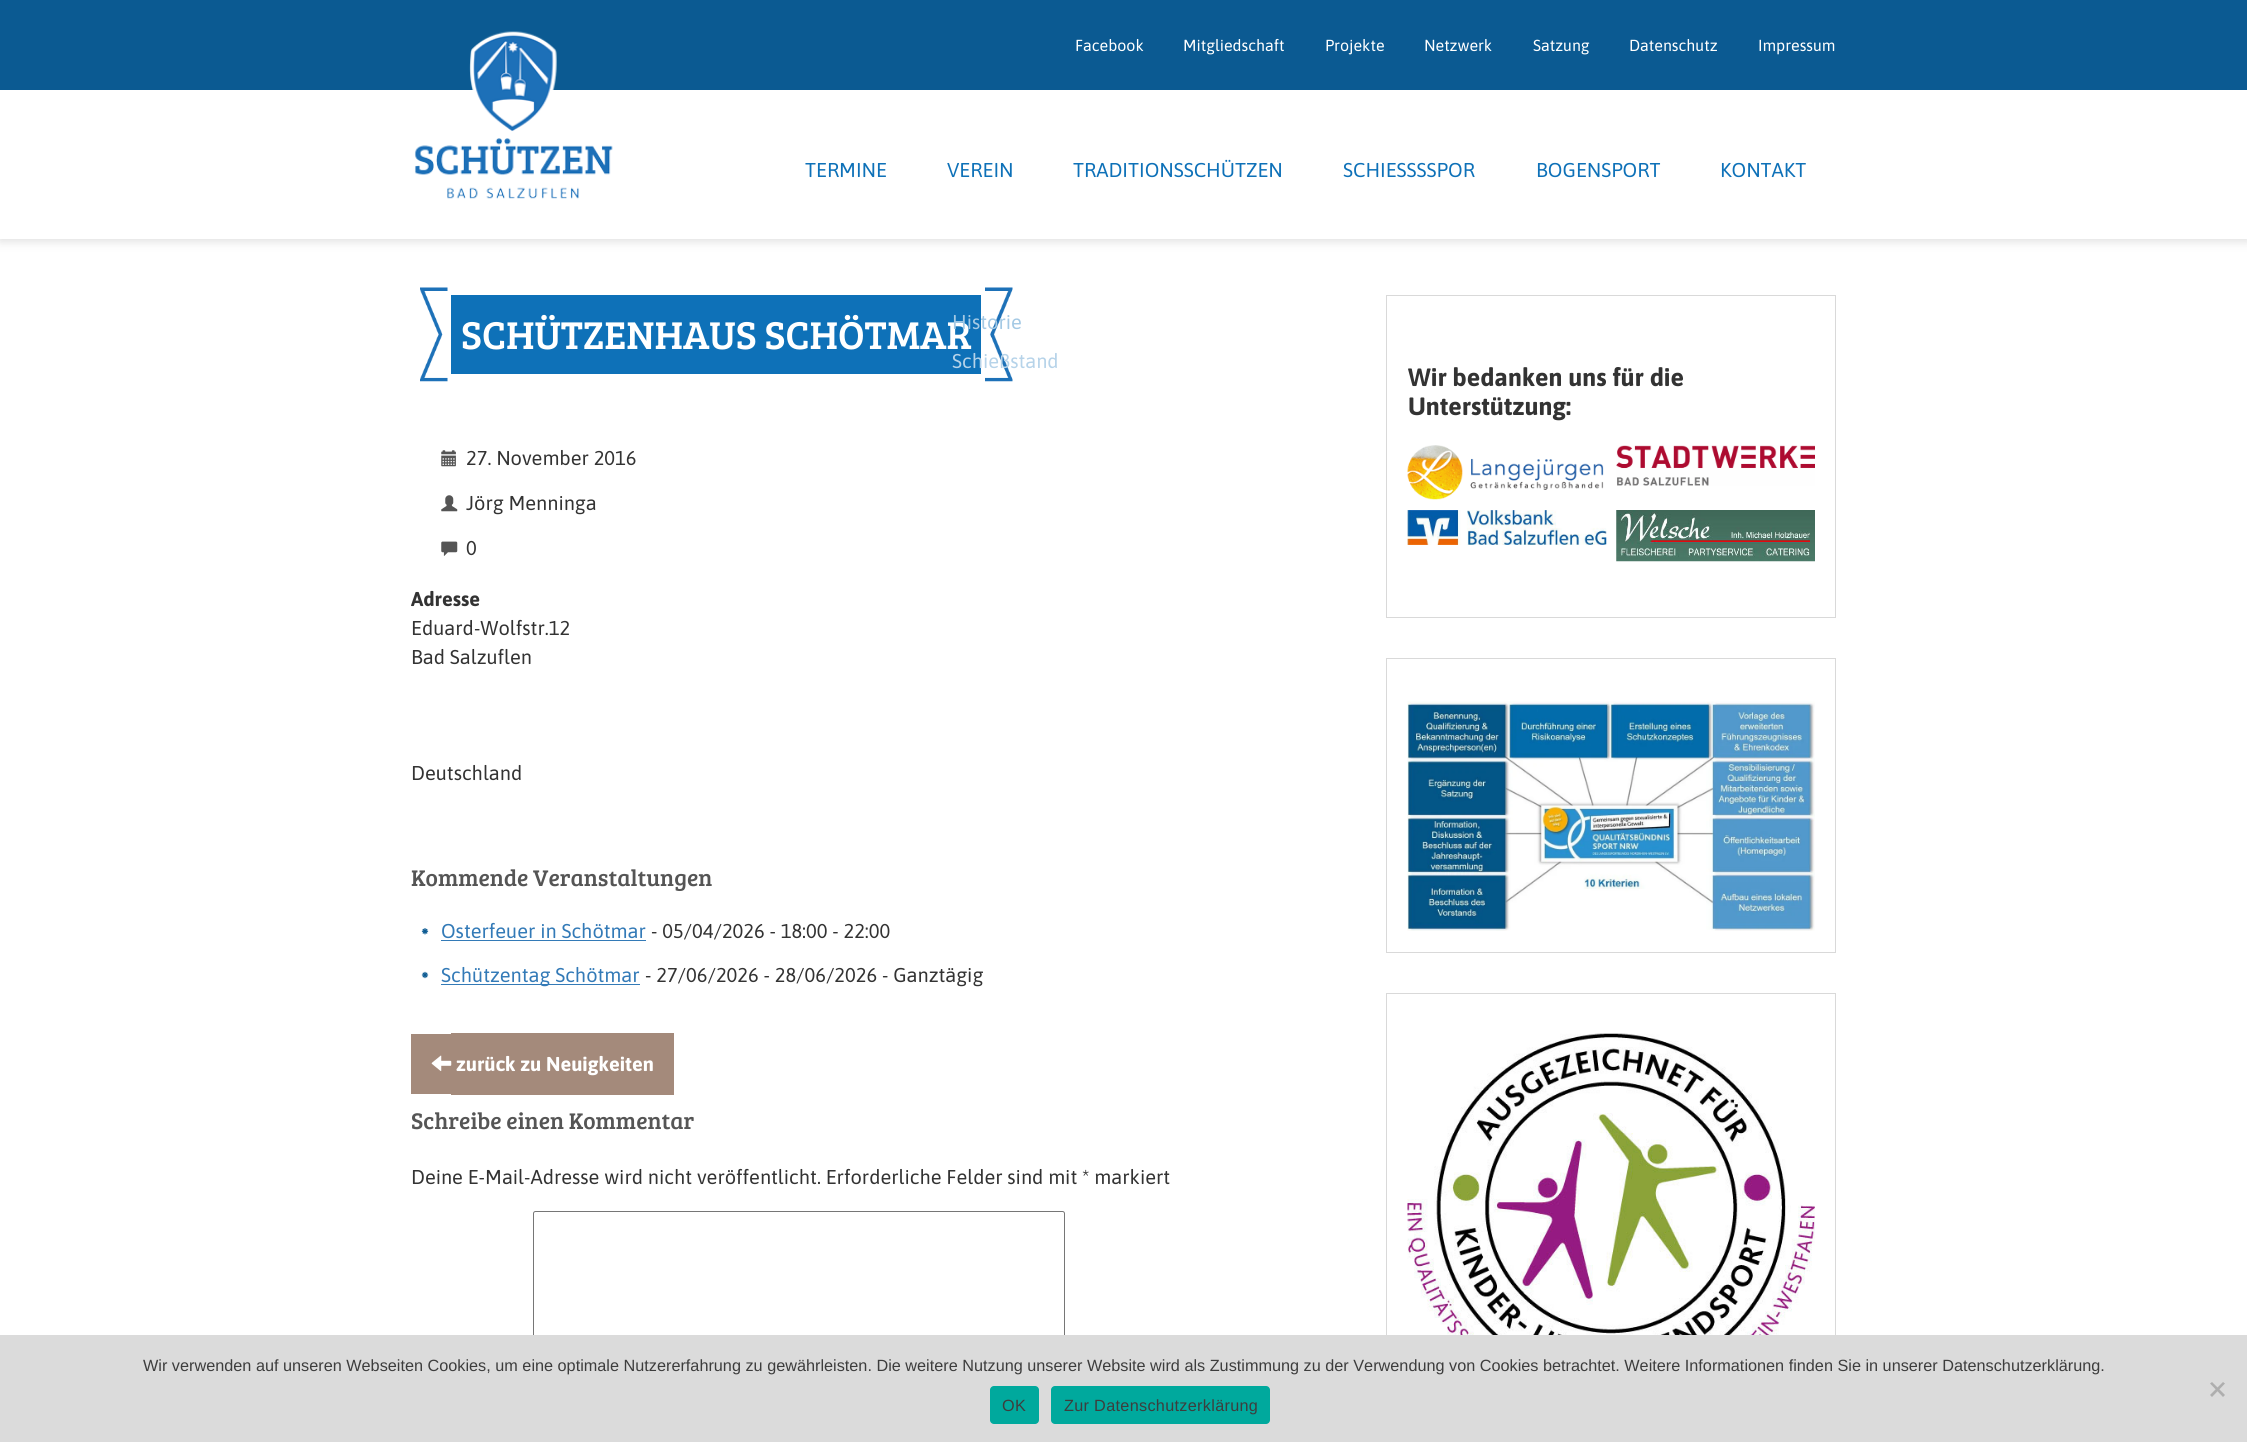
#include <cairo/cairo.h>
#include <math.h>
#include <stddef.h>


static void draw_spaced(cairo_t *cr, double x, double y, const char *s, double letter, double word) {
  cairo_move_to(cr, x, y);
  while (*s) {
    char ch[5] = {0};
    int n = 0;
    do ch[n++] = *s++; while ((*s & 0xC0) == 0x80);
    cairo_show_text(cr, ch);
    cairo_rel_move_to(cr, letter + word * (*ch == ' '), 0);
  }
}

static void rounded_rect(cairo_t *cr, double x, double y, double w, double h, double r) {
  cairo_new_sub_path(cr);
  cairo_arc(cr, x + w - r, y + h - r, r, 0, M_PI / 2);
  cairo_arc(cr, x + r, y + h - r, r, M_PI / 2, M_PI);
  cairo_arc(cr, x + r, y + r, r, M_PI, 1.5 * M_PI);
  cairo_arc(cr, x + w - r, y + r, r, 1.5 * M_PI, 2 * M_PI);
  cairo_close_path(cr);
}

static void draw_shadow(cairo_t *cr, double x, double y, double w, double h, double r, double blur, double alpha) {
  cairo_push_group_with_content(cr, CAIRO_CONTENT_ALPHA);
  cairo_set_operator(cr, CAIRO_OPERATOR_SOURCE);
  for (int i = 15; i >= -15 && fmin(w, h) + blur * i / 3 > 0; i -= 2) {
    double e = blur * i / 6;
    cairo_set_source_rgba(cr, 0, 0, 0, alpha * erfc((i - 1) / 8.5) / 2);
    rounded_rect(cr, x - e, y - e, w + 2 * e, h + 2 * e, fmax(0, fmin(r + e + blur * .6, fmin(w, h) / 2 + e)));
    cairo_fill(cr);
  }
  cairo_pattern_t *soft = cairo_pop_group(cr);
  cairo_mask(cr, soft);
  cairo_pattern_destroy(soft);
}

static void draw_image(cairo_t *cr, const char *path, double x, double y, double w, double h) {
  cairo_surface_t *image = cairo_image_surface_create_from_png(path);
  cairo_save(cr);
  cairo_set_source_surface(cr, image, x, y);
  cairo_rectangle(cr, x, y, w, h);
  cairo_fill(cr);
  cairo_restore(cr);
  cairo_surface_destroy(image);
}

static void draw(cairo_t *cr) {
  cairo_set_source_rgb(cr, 1, 1, 1);
  cairo_paint(cr);
  cairo_save(cr);
  cairo_set_fill_rule(cr, CAIRO_FILL_RULE_EVEN_ODD);
  cairo_new_path(cr);
  cairo_move_to(cr, 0, 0);
  cairo_line_to(cr, 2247, 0);
  cairo_line_to(cr, 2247, 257);
  cairo_line_to(cr, 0, 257);
  cairo_close_path(cr);
  cairo_move_to(cr, 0, 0);
  cairo_line_to(cr, 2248, 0);
  cairo_line_to(cr, 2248, 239);
  cairo_line_to(cr, 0, 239);
  cairo_close_path(cr);
  cairo_clip(cr);
  cairo_set_source_rgb(cr, 221 / 255.0, 221 / 255.0, 221 / 255.0);
  draw_shadow(cr, 0, 3, 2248, 238, 0, 5, 1);
  cairo_restore(cr);
  cairo_set_source_rgb(cr, 11 / 255.0, 90 / 255.0, 146 / 255.0);
  cairo_rectangle(cr, 0, 0, 2247, 90);
  cairo_fill(cr);
  draw_image(cr, "images/1.png", 414, 31, 199, 168);
  cairo_set_source_rgb(cr, 14 / 255.0, 113 / 255.0, 184 / 255.0);
  cairo_rectangle(cr, 451, 295, 530, 79);
  cairo_fill(cr);
  draw_image(cr, "images/2.png", 420, 287, 28, 95);
  draw_image(cr, "images/3.png", 985, 287, 28, 95);
  draw_image(cr, "images/4.png", 441, 450, 15, 17);
  draw_image(cr, "images/5.png", 441, 495, 17, 17);
  draw_image(cr, "images/6.png", 441, 541, 17, 15);
  draw_image(cr, "images/7.png", 421, 928, 8, 7);
  cairo_set_source_rgb(cr, 51 / 255.0, 122 / 255.0, 183 / 255.0);
  cairo_rectangle(cr, 441, 940, 205, 1);
  cairo_fill(cr);
  draw_image(cr, "images/8.png", 421, 971, 8, 8);
  cairo_rectangle(cr, 441, 984, 199, 1);
  cairo_fill(cr);
  cairo_set_source_rgb(cr, 164 / 255.0, 138 / 255.0, 123 / 255.0);
  cairo_rectangle(cr, 411, 1034, 40, 60);
  cairo_fill(cr);
  cairo_rectangle(cr, 451, 1033, 223, 62);
  cairo_fill(cr);
  draw_image(cr, "images/9.png", 431, 1055, 21, 16);
  rounded_rect(cr, 533.5, 1211.5, 531, 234, 2);
  cairo_set_source_rgb(cr, 118 / 255.0, 118 / 255.0, 118 / 255.0);
  cairo_set_line_width(cr, 1);
  cairo_stroke(cr);
  cairo_rectangle(cr, 1386.5, 295.5, 449, 322);
  cairo_set_source_rgb(cr, 217 / 255.0, 217 / 255.0, 217 / 255.0);
  cairo_stroke(cr);
  draw_image(cr, "images/10.png", 1407, 445, 197, 55);
  draw_image(cr, "images/11.png", 1616, 445, 199, 41);
  draw_image(cr, "images/12.png", 1407, 510, 200, 35);
  draw_image(cr, "images/13.png", 1616, 510, 199, 52);
  cairo_rectangle(cr, 1386.5, 658.5, 449, 294);
  cairo_stroke(cr);
  draw_image(cr, "images/14.png", 1407, 701, 408, 230);
  cairo_rectangle(cr, 1386.5, 993.5, 449, 441);
  cairo_stroke(cr);
  draw_image(cr, "images/15.png", 1407, 1033, 408, 302);
  cairo_set_source_rgb(cr, 219 / 255.0, 219 / 255.0, 219 / 255.0);
  cairo_rectangle(cr, 0, 1335, 2247, 107);
  cairo_fill(cr);
  cairo_set_source_rgb(cr, 174 / 255.0, 174 / 255.0, 174 / 255.0);
  cairo_new_path(cr);
  cairo_move_to(cr, 2223, 1382);
  cairo_line_to(cr, 2225, 1383.5);
  cairo_line_to(cr, 2212, 1397);
  cairo_line_to(cr, 2210, 1395);
  cairo_close_path(cr);
  cairo_fill(cr);
  cairo_new_path(cr);
  cairo_move_to(cr, 2210, 1383.5);
  cairo_line_to(cr, 2212, 1382);
  cairo_line_to(cr, 2225, 1395);
  cairo_line_to(cr, 2223, 1397);
  cairo_close_path(cr);
  cairo_fill(cr);
  cairo_set_source_rgb(cr, 0, 169 / 255.0, 157 / 255.0);
  rounded_rect(cr, 990, 1386, 49, 38, 4);
  cairo_fill(cr);
  rounded_rect(cr, 1051, 1386, 219, 38, 4);
  cairo_fill(cr);
  cairo_select_font_face(cr, "Asap", CAIRO_FONT_SLANT_NORMAL, CAIRO_FONT_WEIGHT_NORMAL);
  cairo_set_font_size(cr, 16);
  cairo_set_source_rgb(cr, 1, 1, 1);
  cairo_move_to(cr, 1075, 51);
  cairo_show_text(cr, "Facebook");
  cairo_move_to(cr, 1183, 51);
  cairo_show_text(cr, "Mitgliedschaft");
  cairo_move_to(cr, 1325, 51);
  cairo_show_text(cr, "Projekte");
  cairo_move_to(cr, 1424, 51);
  cairo_show_text(cr, "Netzwerk");
  cairo_move_to(cr, 1533, 51);
  cairo_show_text(cr, "Satzung");
  cairo_move_to(cr, 1629, 51);
  cairo_show_text(cr, "Datenschutz");
  cairo_move_to(cr, 1758, 51);
  cairo_show_text(cr, "Impressum");
  cairo_set_font_size(cr, 20);
  cairo_set_source_rgb(cr, 14 / 255.0, 113 / 255.0, 184 / 255.0);
  cairo_move_to(cr, 805, 177);
  cairo_show_text(cr, "TERMINE");
  cairo_move_to(cr, 947, 177);
  cairo_show_text(cr, "VEREIN");
  cairo_set_source_rgb(cr, 182 / 255.0, 211 / 255.0, 233 / 255.0);
  cairo_move_to(cr, 952, 368);
  cairo_show_text(cr, "Schießstand");
  cairo_set_source_rgb(cr, 14 / 255.0, 113 / 255.0, 184 / 255.0);
  cairo_move_to(cr, 1073, 177);
  cairo_show_text(cr, "TRADITIONSSCHÜTZEN");
  cairo_move_to(cr, 1343, 177);
  cairo_show_text(cr, "SCHIESSSSPOR");
  cairo_move_to(cr, 1536, 177);
  cairo_show_text(cr, "BOGENSPORT");
  cairo_move_to(cr, 1720, 177);
  cairo_show_text(cr, "KONTAKT");
  cairo_select_font_face(cr, "Bree Serif", CAIRO_FONT_SLANT_NORMAL, CAIRO_FONT_WEIGHT_NORMAL);
  cairo_set_font_size(cr, 40);
  cairo_set_source_rgb(cr, 1, 1, 1);
  cairo_move_to(cr, 461, 349);
  cairo_show_text(cr, "SCHÜTZENHAUS SCHÖTMAR");
  cairo_select_font_face(cr, "Asap", CAIRO_FONT_SLANT_NORMAL, CAIRO_FONT_WEIGHT_NORMAL);
  cairo_set_font_size(cr, 20);
  cairo_set_source_rgb(cr, 164 / 255.0, 201 / 255.0, 228 / 255.0);
  cairo_move_to(cr, 952, 329);
  cairo_show_text(cr, "Historie");
  cairo_set_source_rgb(cr, 51 / 255.0, 51 / 255.0, 51 / 255.0);
  cairo_move_to(cr, 466, 465);
  cairo_show_text(cr, "27. November 2016");
  cairo_move_to(cr, 466, 510);
  cairo_show_text(cr, "Jörg Menninga");
  cairo_move_to(cr, 466, 555);
  cairo_show_text(cr, "0");
  cairo_select_font_face(cr, "Asap", CAIRO_FONT_SLANT_NORMAL, CAIRO_FONT_WEIGHT_BOLD);
  cairo_move_to(cr, 411, 606);
  cairo_show_text(cr, "Adresse");
  cairo_select_font_face(cr, "Asap", CAIRO_FONT_SLANT_NORMAL, CAIRO_FONT_WEIGHT_NORMAL);
  cairo_move_to(cr, 411, 635);
  cairo_show_text(cr, "Eduard-Wolfstr.12");
  cairo_move_to(cr, 411, 664);
  cairo_show_text(cr, "Bad Salzuflen");
  cairo_move_to(cr, 411, 780);
  cairo_show_text(cr, "Deutschland");
  cairo_select_font_face(cr, "Bree Serif", CAIRO_FONT_SLANT_NORMAL, CAIRO_FONT_WEIGHT_NORMAL);
  cairo_set_font_size(cr, 23.4);
  cairo_set_source_rgb(cr, 85 / 255.0, 85 / 255.0, 85 / 255.0);
  cairo_move_to(cr, 411, 886);
  cairo_show_text(cr, "Kommende Veranstaltungen");
  cairo_select_font_face(cr, "Asap", CAIRO_FONT_SLANT_NORMAL, CAIRO_FONT_WEIGHT_NORMAL);
  cairo_set_font_size(cr, 20);
  cairo_set_source_rgb(cr, 51 / 255.0, 122 / 255.0, 183 / 255.0);
  cairo_move_to(cr, 441, 938);
  cairo_show_text(cr, "Osterfeuer in Schötmar");
  cairo_set_source_rgb(cr, 51 / 255.0, 51 / 255.0, 51 / 255.0);
  cairo_move_to(cr, 651, 938);
  cairo_show_text(cr, "- 05/04/2026 - 18:00 - 22:00");
  cairo_set_source_rgb(cr, 51 / 255.0, 122 / 255.0, 183 / 255.0);
  cairo_move_to(cr, 441, 982);
  cairo_show_text(cr, "Schützentag Schötmar");
  cairo_set_source_rgb(cr, 51 / 255.0, 51 / 255.0, 51 / 255.0);
  cairo_move_to(cr, 645, 982);
  cairo_show_text(cr, "- 27/06/2026 - 28/06/2026 - Ganztägig");
  cairo_select_font_face(cr, "Asap", CAIRO_FONT_SLANT_NORMAL, CAIRO_FONT_WEIGHT_BOLD);
  cairo_set_source_rgb(cr, 1, 1, 1);
  cairo_move_to(cr, 456, 1071);
  cairo_show_text(cr, "zurück zu Neuigkeiten");
  cairo_select_font_face(cr, "Bree Serif", CAIRO_FONT_SLANT_NORMAL, CAIRO_FONT_WEIGHT_NORMAL);
  cairo_set_font_size(cr, 23.4);
  cairo_set_source_rgb(cr, 85 / 255.0, 85 / 255.0, 85 / 255.0);
  cairo_move_to(cr, 411, 1129);
  cairo_show_text(cr, "Schreibe einen Kommentar");
  cairo_select_font_face(cr, "Asap", CAIRO_FONT_SLANT_NORMAL, CAIRO_FONT_WEIGHT_NORMAL);
  cairo_set_font_size(cr, 20);
  cairo_set_source_rgb(cr, 51 / 255.0, 51 / 255.0, 51 / 255.0);
  cairo_move_to(cr, 411, 1184);
  cairo_show_text(cr, "Deine E-Mail-Adresse wird nicht veröffentlicht. Erforderliche Felder sind mit * markiert");
  cairo_select_font_face(cr, "Asap", CAIRO_FONT_SLANT_NORMAL, CAIRO_FONT_WEIGHT_BOLD);
  cairo_set_font_size(cr, 25);
  cairo_move_to(cr, 1408, 386);
  cairo_show_text(cr, "Wir bedanken uns für die");
  cairo_move_to(cr, 1408, 415);
  cairo_show_text(cr, "Unterstützung:");
  cairo_select_font_face(cr, "Liberation Sans", CAIRO_FONT_SLANT_NORMAL, CAIRO_FONT_WEIGHT_NORMAL);
  cairo_set_font_size(cr, 16.25);
  cairo_set_source_rgb(cr, 61 / 255.0, 61 / 255.0, 61 / 255.0);
  cairo_move_to(cr, 143, 1371);
  cairo_show_text(cr, "Wir verwenden auf unseren Webseiten Cookies, um eine optimale Nutzererfahrung zu gewährleisten. Die weitere Nutzung unserer Website wird als Zustimmung zu der Verwendung von Cookies betrachtet. Weitere Informationen finden Sie in unserer Datenschutzerklärung.");
  draw_spaced(cr, 1002, 1411, "OK", 0.3, 0);
  draw_spaced(cr, 1064, 1411, "Zur Datenschutzerklärung", 0.3, 0);
}

int main(void) {
  cairo_surface_t *surface = cairo_image_surface_create(CAIRO_FORMAT_RGB24, 2247, 1442);
  cairo_t *cr = cairo_create(surface);
  cairo_font_options_t *options = cairo_font_options_create();
  cairo_font_options_set_hint_metrics(options, CAIRO_HINT_METRICS_OFF);
  cairo_font_options_set_hint_style(options, CAIRO_HINT_STYLE_NONE);
  cairo_set_font_options(cr, options);
  cairo_set_miter_limit(cr, 4);
  draw(cr);
  cairo_surface_write_to_png(surface, "out.png");
  cairo_font_options_destroy(options);
  cairo_destroy(cr);
  cairo_surface_destroy(surface);
  return 0;
}
